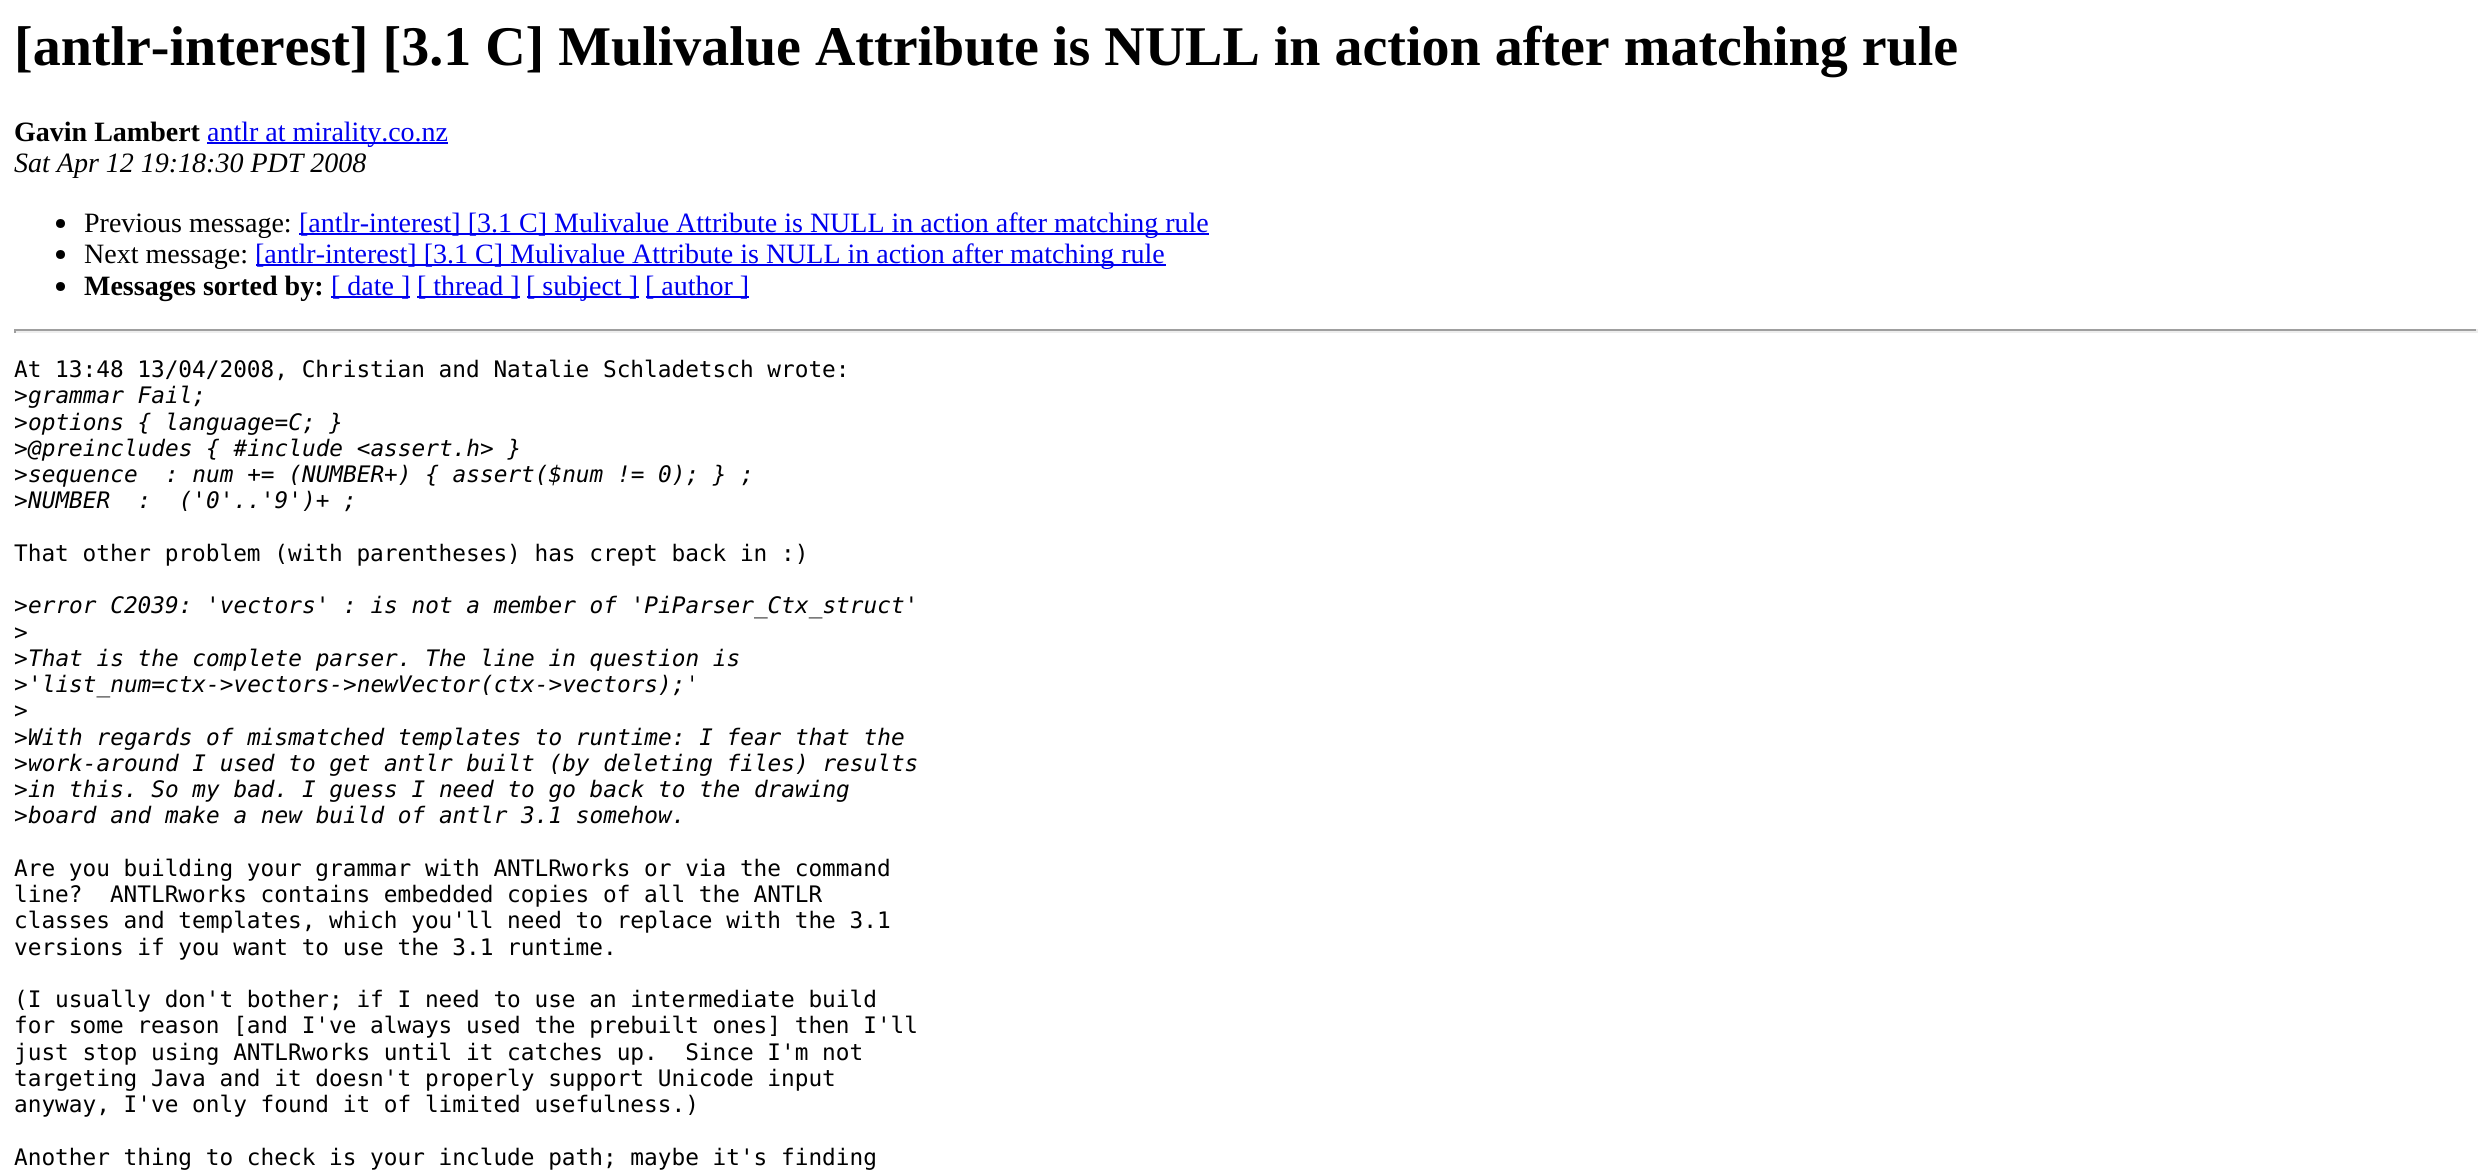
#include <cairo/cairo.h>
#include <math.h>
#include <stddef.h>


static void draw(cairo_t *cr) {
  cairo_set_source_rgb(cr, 1, 1, 1);
  cairo_paint(cr);
  cairo_set_source_rgb(cr, 0, 0, 238 / 255.0);
  cairo_rectangle(cr, 207, 142, 241, 2);
  cairo_fill(cr);
  cairo_set_source_rgb(cr, 0, 0, 0);
  cairo_arc(cr, 60.5, 223.5, 4.5, 0, 2 * M_PI);
  cairo_fill(cr);
  cairo_set_source_rgb(cr, 0, 0, 238 / 255.0);
  cairo_rectangle(cr, 299, 233, 910, 2);
  cairo_fill(cr);
  cairo_set_source_rgb(cr, 0, 0, 0);
  cairo_arc(cr, 60.5, 254.5, 4.5, 0, 2 * M_PI);
  cairo_fill(cr);
  cairo_set_source_rgb(cr, 0, 0, 238 / 255.0);
  cairo_rectangle(cr, 256, 264, 910, 2);
  cairo_fill(cr);
  cairo_set_source_rgb(cr, 0, 0, 0);
  cairo_arc(cr, 60.5, 286.5, 4.5, 0, 2 * M_PI);
  cairo_fill(cr);
  cairo_set_source_rgb(cr, 0, 0, 238 / 255.0);
  cairo_rectangle(cr, 331, 296, 79, 2);
  cairo_fill(cr);
  cairo_rectangle(cr, 417, 296, 103, 2);
  cairo_fill(cr);
  cairo_rectangle(cr, 527, 296, 112, 2);
  cairo_fill(cr);
  cairo_rectangle(cr, 646, 296, 103, 2);
  cairo_fill(cr);
  cairo_set_source_rgb(cr, 159 / 255.0, 159 / 255.0, 159 / 255.0);
  cairo_rectangle(cr, 14, 329, 2464, 2);
  cairo_fill(cr);
  cairo_set_source_rgb(cr, 238 / 255.0, 238 / 255.0, 238 / 255.0);
  cairo_rectangle(cr, 2476, 329, 2, 4);
  cairo_fill(cr);
  cairo_rectangle(cr, 14, 331, 2464, 2);
  cairo_fill(cr);
  cairo_set_source_rgb(cr, 159 / 255.0, 159 / 255.0, 159 / 255.0);
  cairo_rectangle(cr, 14, 329, 2, 4);
  cairo_fill(cr);
  cairo_select_font_face(cr, "Liberation Serif", CAIRO_FONT_SLANT_NORMAL, CAIRO_FONT_WEIGHT_BOLD);
  cairo_set_font_size(cr, 56);
  cairo_set_source_rgb(cr, 0, 0, 0);
  cairo_move_to(cr, 14, 65);
  cairo_show_text(cr, "[antlr-interest] [3.1 C] Mulivalue Attribute is NULL in action after matching rule");
  cairo_set_font_size(cr, 28);
  cairo_move_to(cr, 14, 141);
  cairo_show_text(cr, "Gavin Lambert");
  cairo_select_font_face(cr, "Liberation Serif", CAIRO_FONT_SLANT_NORMAL, CAIRO_FONT_WEIGHT_NORMAL);
  cairo_set_source_rgb(cr, 0, 0, 238 / 255.0);
  cairo_move_to(cr, 207, 141);
  cairo_show_text(cr, "antlr at mirality.co.nz");
  cairo_select_font_face(cr, "Liberation Serif", CAIRO_FONT_SLANT_ITALIC, CAIRO_FONT_WEIGHT_NORMAL);
  cairo_set_source_rgb(cr, 0, 0, 0);
  cairo_move_to(cr, 14, 172);
  cairo_show_text(cr, "Sat Apr 12 19:18:30 PDT 2008");
  cairo_select_font_face(cr, "Liberation Serif", CAIRO_FONT_SLANT_NORMAL, CAIRO_FONT_WEIGHT_NORMAL);
  cairo_move_to(cr, 84, 232);
  cairo_show_text(cr, "Previous message:");
  cairo_set_source_rgb(cr, 0, 0, 238 / 255.0);
  cairo_move_to(cr, 299, 232);
  cairo_show_text(cr, "[antlr-interest] [3.1 C] Mulivalue Attribute is NULL in action after matching rule");
  cairo_set_source_rgb(cr, 0, 0, 0);
  cairo_move_to(cr, 84, 263);
  cairo_show_text(cr, "Next message:");
  cairo_set_source_rgb(cr, 0, 0, 238 / 255.0);
  cairo_move_to(cr, 255, 263);
  cairo_show_text(cr, "[antlr-interest] [3.1 C] Mulivalue Attribute is NULL in action after matching rule");
  cairo_select_font_face(cr, "Liberation Serif", CAIRO_FONT_SLANT_NORMAL, CAIRO_FONT_WEIGHT_BOLD);
  cairo_set_source_rgb(cr, 0, 0, 0);
  cairo_move_to(cr, 84, 295);
  cairo_show_text(cr, "Messages sorted by:");
  cairo_select_font_face(cr, "Liberation Serif", CAIRO_FONT_SLANT_NORMAL, CAIRO_FONT_WEIGHT_NORMAL);
  cairo_set_source_rgb(cr, 0, 0, 238 / 255.0);
  cairo_move_to(cr, 331, 295);
  cairo_show_text(cr, "[ date ]");
  cairo_move_to(cr, 417, 295);
  cairo_show_text(cr, "[ thread ]");
  cairo_move_to(cr, 526, 295);
  cairo_show_text(cr, "[ subject ]");
  cairo_move_to(cr, 645, 295);
  cairo_show_text(cr, "[ author ]");
  cairo_select_font_face(cr, "DejaVu Sans Mono", CAIRO_FONT_SLANT_NORMAL, CAIRO_FONT_WEIGHT_NORMAL);
  cairo_set_font_size(cr, 22.75);
  cairo_set_source_rgb(cr, 0, 0, 0);
  cairo_move_to(cr, 14, 377);
  cairo_show_text(cr, "At 13:48 13/04/2008, Christian and Natalie Schladetsch wrote:");
  cairo_move_to(cr, 14, 403);
  cairo_show_text(cr, ">");
  cairo_select_font_face(cr, "DejaVu Sans Mono", CAIRO_FONT_SLANT_ITALIC, CAIRO_FONT_WEIGHT_NORMAL);
  cairo_move_to(cr, 28, 403);
  cairo_show_text(cr, "grammar Fail;");
  cairo_select_font_face(cr, "DejaVu Sans Mono", CAIRO_FONT_SLANT_NORMAL, CAIRO_FONT_WEIGHT_NORMAL);
  cairo_move_to(cr, 14, 430);
  cairo_show_text(cr, ">");
  cairo_select_font_face(cr, "DejaVu Sans Mono", CAIRO_FONT_SLANT_ITALIC, CAIRO_FONT_WEIGHT_NORMAL);
  cairo_move_to(cr, 28, 430);
  cairo_show_text(cr, "options { language=C; }");
  cairo_select_font_face(cr, "DejaVu Sans Mono", CAIRO_FONT_SLANT_NORMAL, CAIRO_FONT_WEIGHT_NORMAL);
  cairo_move_to(cr, 14, 456);
  cairo_show_text(cr, ">");
  cairo_select_font_face(cr, "DejaVu Sans Mono", CAIRO_FONT_SLANT_ITALIC, CAIRO_FONT_WEIGHT_NORMAL);
  cairo_move_to(cr, 28, 456);
  cairo_show_text(cr, "@preincludes { #include <assert.h> }");
  cairo_select_font_face(cr, "DejaVu Sans Mono", CAIRO_FONT_SLANT_NORMAL, CAIRO_FONT_WEIGHT_NORMAL);
  cairo_move_to(cr, 14, 482);
  cairo_show_text(cr, ">");
  cairo_select_font_face(cr, "DejaVu Sans Mono", CAIRO_FONT_SLANT_ITALIC, CAIRO_FONT_WEIGHT_NORMAL);
  cairo_move_to(cr, 28, 482);
  cairo_show_text(cr, "sequence  : num += (NUMBER+) { assert($num != 0); } ;");
  cairo_select_font_face(cr, "DejaVu Sans Mono", CAIRO_FONT_SLANT_NORMAL, CAIRO_FONT_WEIGHT_NORMAL);
  cairo_move_to(cr, 14, 508);
  cairo_show_text(cr, ">");
  cairo_select_font_face(cr, "DejaVu Sans Mono", CAIRO_FONT_SLANT_ITALIC, CAIRO_FONT_WEIGHT_NORMAL);
  cairo_move_to(cr, 28, 508);
  cairo_show_text(cr, "NUMBER  :  ('0'..'9')+ ;");
  cairo_select_font_face(cr, "DejaVu Sans Mono", CAIRO_FONT_SLANT_NORMAL, CAIRO_FONT_WEIGHT_NORMAL);
  cairo_move_to(cr, 14, 561);
  cairo_show_text(cr, "That other problem (with parentheses) has crept back in :)");
  cairo_move_to(cr, 14, 613);
  cairo_show_text(cr, ">");
  cairo_select_font_face(cr, "DejaVu Sans Mono", CAIRO_FONT_SLANT_ITALIC, CAIRO_FONT_WEIGHT_NORMAL);
  cairo_move_to(cr, 28, 613);
  cairo_show_text(cr, "error C2039: 'vectors' : is not a member of 'PiParser_Ctx_struct'");
  cairo_select_font_face(cr, "DejaVu Sans Mono", CAIRO_FONT_SLANT_NORMAL, CAIRO_FONT_WEIGHT_NORMAL);
  cairo_move_to(cr, 14, 640);
  cairo_show_text(cr, ">");
  cairo_move_to(cr, 14, 666);
  cairo_show_text(cr, ">");
  cairo_select_font_face(cr, "DejaVu Sans Mono", CAIRO_FONT_SLANT_ITALIC, CAIRO_FONT_WEIGHT_NORMAL);
  cairo_move_to(cr, 28, 666);
  cairo_show_text(cr, "That is the complete parser. The line in question is");
  cairo_select_font_face(cr, "DejaVu Sans Mono", CAIRO_FONT_SLANT_NORMAL, CAIRO_FONT_WEIGHT_NORMAL);
  cairo_move_to(cr, 14, 692);
  cairo_show_text(cr, ">");
  cairo_select_font_face(cr, "DejaVu Sans Mono", CAIRO_FONT_SLANT_ITALIC, CAIRO_FONT_WEIGHT_NORMAL);
  cairo_move_to(cr, 28, 692);
  cairo_show_text(cr, "'list_num=ctx->vectors->newVector(ctx->vectors);'");
  cairo_select_font_face(cr, "DejaVu Sans Mono", CAIRO_FONT_SLANT_NORMAL, CAIRO_FONT_WEIGHT_NORMAL);
  cairo_move_to(cr, 14, 718);
  cairo_show_text(cr, ">");
  cairo_move_to(cr, 14, 745);
  cairo_show_text(cr, ">");
  cairo_select_font_face(cr, "DejaVu Sans Mono", CAIRO_FONT_SLANT_ITALIC, CAIRO_FONT_WEIGHT_NORMAL);
  cairo_move_to(cr, 28, 745);
  cairo_show_text(cr, "With regards of mismatched templates to runtime: I fear that the");
  cairo_select_font_face(cr, "DejaVu Sans Mono", CAIRO_FONT_SLANT_NORMAL, CAIRO_FONT_WEIGHT_NORMAL);
  cairo_move_to(cr, 14, 771);
  cairo_show_text(cr, ">");
  cairo_select_font_face(cr, "DejaVu Sans Mono", CAIRO_FONT_SLANT_ITALIC, CAIRO_FONT_WEIGHT_NORMAL);
  cairo_move_to(cr, 28, 771);
  cairo_show_text(cr, "work-around I used to get antlr built (by deleting files) results");
  cairo_select_font_face(cr, "DejaVu Sans Mono", CAIRO_FONT_SLANT_NORMAL, CAIRO_FONT_WEIGHT_NORMAL);
  cairo_move_to(cr, 14, 797);
  cairo_show_text(cr, ">");
  cairo_select_font_face(cr, "DejaVu Sans Mono", CAIRO_FONT_SLANT_ITALIC, CAIRO_FONT_WEIGHT_NORMAL);
  cairo_move_to(cr, 28, 797);
  cairo_show_text(cr, "in this. So my bad. I guess I need to go back to the drawing");
  cairo_select_font_face(cr, "DejaVu Sans Mono", CAIRO_FONT_SLANT_NORMAL, CAIRO_FONT_WEIGHT_NORMAL);
  cairo_move_to(cr, 14, 823);
  cairo_show_text(cr, ">");
  cairo_select_font_face(cr, "DejaVu Sans Mono", CAIRO_FONT_SLANT_ITALIC, CAIRO_FONT_WEIGHT_NORMAL);
  cairo_move_to(cr, 28, 823);
  cairo_show_text(cr, "board and make a new build of antlr 3.1 somehow.");
  cairo_select_font_face(cr, "DejaVu Sans Mono", CAIRO_FONT_SLANT_NORMAL, CAIRO_FONT_WEIGHT_NORMAL);
  cairo_move_to(cr, 14, 876);
  cairo_show_text(cr, "Are you building your grammar with ANTLRworks or via the command");
  cairo_move_to(cr, 14, 902);
  cairo_show_text(cr, "line?  ANTLRworks contains embedded copies of all the ANTLR");
  cairo_move_to(cr, 14, 928);
  cairo_show_text(cr, "classes and templates, which you'll need to replace with the 3.1");
  cairo_move_to(cr, 14, 955);
  cairo_show_text(cr, "versions if you want to use the 3.1 runtime.");
  cairo_move_to(cr, 14, 1007);
  cairo_show_text(cr, "(I usually don't bother; if I need to use an intermediate build");
  cairo_move_to(cr, 14, 1033);
  cairo_show_text(cr, "for some reason [and I've always used the prebuilt ones] then I'll");
  cairo_move_to(cr, 14, 1060);
  cairo_show_text(cr, "just stop using ANTLRworks until it catches up.  Since I'm not");
  cairo_move_to(cr, 14, 1086);
  cairo_show_text(cr, "targeting Java and it doesn't properly support Unicode input");
  cairo_move_to(cr, 14, 1112);
  cairo_show_text(cr, "anyway, I've only found it of limited usefulness.)");
  cairo_move_to(cr, 14, 1165);
  cairo_show_text(cr, "Another thing to check is your include path; maybe it's finding");
}

int main(void) {
  cairo_surface_t *surface = cairo_image_surface_create(CAIRO_FORMAT_RGB24, 2491, 1170);
  cairo_t *cr = cairo_create(surface);
  cairo_font_options_t *options = cairo_font_options_create();
  cairo_font_options_set_hint_metrics(options, CAIRO_HINT_METRICS_OFF);
  cairo_font_options_set_hint_style(options, CAIRO_HINT_STYLE_NONE);
  cairo_set_font_options(cr, options);
  cairo_set_miter_limit(cr, 4);
  draw(cr);
  cairo_surface_write_to_png(surface, "out.png");
  cairo_font_options_destroy(options);
  cairo_destroy(cr);
  cairo_surface_destroy(surface);
  return 0;
}
